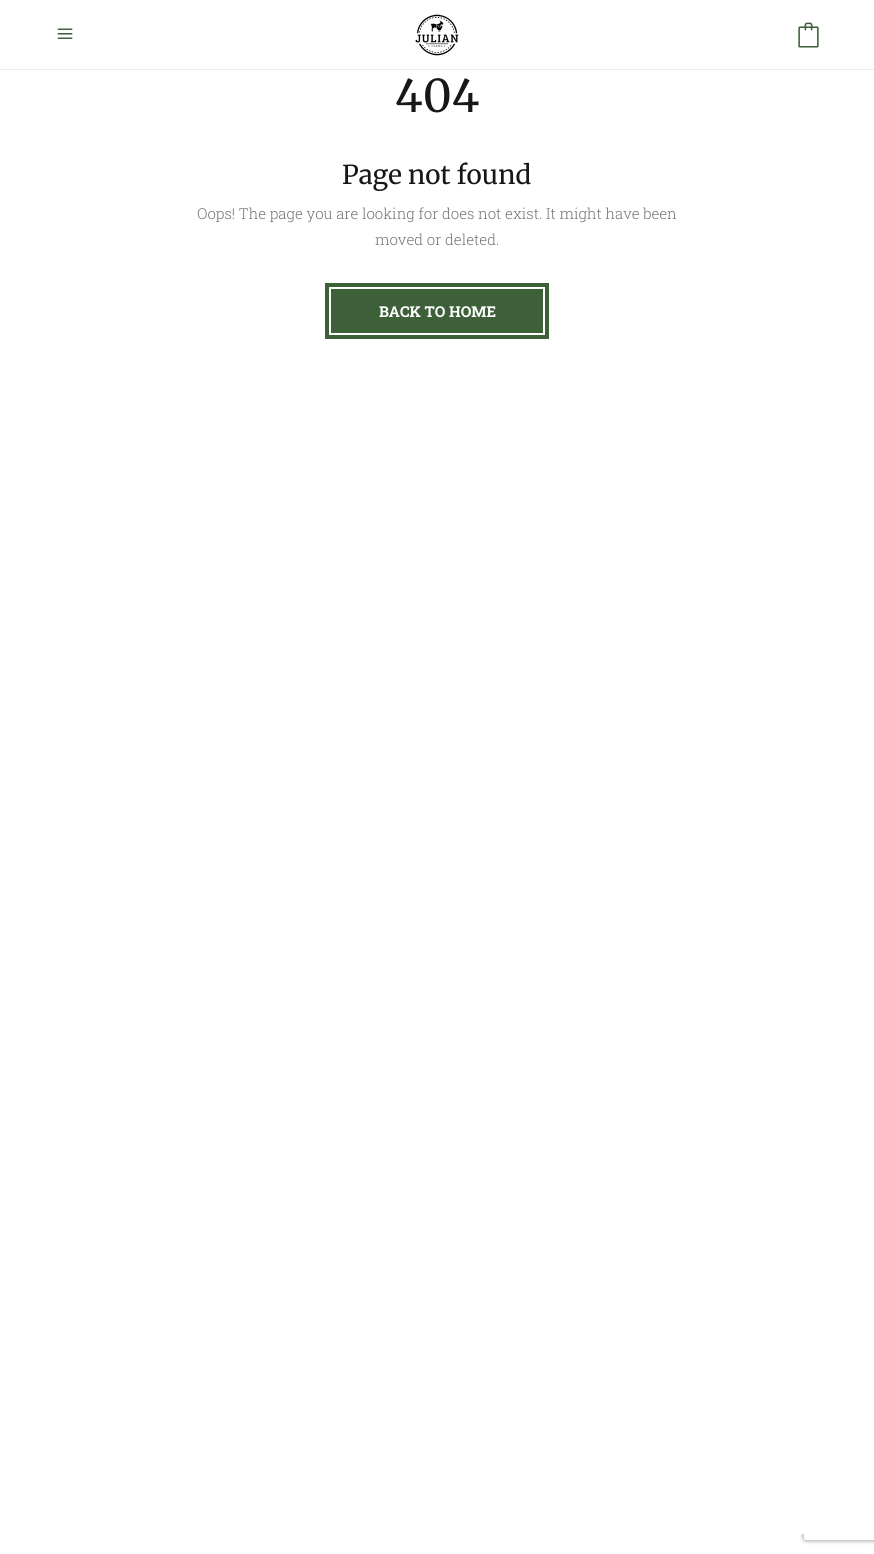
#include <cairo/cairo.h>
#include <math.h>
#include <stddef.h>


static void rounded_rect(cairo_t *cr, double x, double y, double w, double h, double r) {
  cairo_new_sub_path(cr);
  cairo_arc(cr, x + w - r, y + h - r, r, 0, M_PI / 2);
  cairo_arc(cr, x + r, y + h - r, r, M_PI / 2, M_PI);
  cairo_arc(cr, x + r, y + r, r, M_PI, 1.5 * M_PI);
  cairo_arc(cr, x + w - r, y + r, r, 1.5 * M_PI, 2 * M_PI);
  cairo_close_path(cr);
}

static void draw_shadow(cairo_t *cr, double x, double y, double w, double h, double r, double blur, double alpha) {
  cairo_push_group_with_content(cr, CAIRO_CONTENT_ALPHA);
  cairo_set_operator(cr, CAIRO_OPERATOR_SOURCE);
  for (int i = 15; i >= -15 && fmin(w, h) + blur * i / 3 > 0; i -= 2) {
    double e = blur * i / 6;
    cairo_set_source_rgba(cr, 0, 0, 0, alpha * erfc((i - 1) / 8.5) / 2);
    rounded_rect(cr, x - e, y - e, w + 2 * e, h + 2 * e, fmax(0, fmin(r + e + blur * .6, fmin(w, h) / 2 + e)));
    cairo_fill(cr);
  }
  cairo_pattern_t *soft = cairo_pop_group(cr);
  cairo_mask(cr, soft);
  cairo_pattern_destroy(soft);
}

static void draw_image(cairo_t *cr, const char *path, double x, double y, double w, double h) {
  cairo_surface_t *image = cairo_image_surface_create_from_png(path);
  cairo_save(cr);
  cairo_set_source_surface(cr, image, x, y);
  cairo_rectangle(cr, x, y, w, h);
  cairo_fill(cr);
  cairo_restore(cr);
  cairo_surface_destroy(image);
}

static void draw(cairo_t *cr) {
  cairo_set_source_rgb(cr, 1, 1, 1);
  cairo_paint(cr);
  cairo_save(cr);
  cairo_set_fill_rule(cr, CAIRO_FILL_RULE_EVEN_ODD);
  cairo_new_path(cr);
  cairo_move_to(cr, 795, 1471);
  cairo_line_to(cr, 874, 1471);
  cairo_line_to(cr, 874, 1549);
  cairo_line_to(cr, 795, 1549);
  cairo_close_path(cr);
  cairo_move_to(cr, 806, 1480);
  cairo_line_to(cr, 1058, 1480);
  cairo_curve_to(cr, 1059, 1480, 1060, 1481, 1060, 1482);
  cairo_line_to(cr, 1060, 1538);
  cairo_curve_to(cr, 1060, 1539, 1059, 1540, 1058, 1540);
  cairo_line_to(cr, 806, 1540);
  cairo_curve_to(cr, 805, 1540, 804, 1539, 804, 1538);
  cairo_line_to(cr, 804, 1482);
  cairo_curve_to(cr, 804, 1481, 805, 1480, 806, 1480);
  cairo_close_path(cr);
  cairo_clip(cr);
  cairo_set_source_rgb(cr, 128 / 255.0, 128 / 255.0, 128 / 255.0);
  draw_shadow(cr, 804, 1480, 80, 60, 2, 2.5, 1);
  cairo_restore(cr);
  cairo_set_source_rgb(cr, 1, 1, 1);
  cairo_rectangle(cr, 799, 1475, 75, 59);
  cairo_fill(cr);
  cairo_set_source_rgb(cr, 237 / 255.0, 235 / 255.0, 233 / 255.0);
  cairo_rectangle(cr, 0, 69, 874, 1);
  cairo_fill(cr);
  draw_image(cr, "images/1.png", 57, 28, 16, 11);
  draw_image(cr, "images/2.png", 415, 14, 44, 42);
  draw_image(cr, "images/3.png", 798, 22, 21, 26);
  cairo_set_source_rgb(cr, 61 / 255.0, 96 / 255.0, 57 / 255.0);
  cairo_rectangle(cr, 325, 283, 224, 56);
  cairo_fill(cr);
  cairo_rectangle(cr, 330, 288, 214, 46);
  cairo_set_source_rgb(cr, 1, 1, 1);
  cairo_stroke(cr);
  cairo_select_font_face(cr, "Merriweather", CAIRO_FONT_SLANT_NORMAL, CAIRO_FONT_WEIGHT_NORMAL);
  cairo_set_font_size(cr, 45);
  cairo_set_source_rgb(cr, 23 / 255.0, 23 / 255.0, 23 / 255.0);
  cairo_move_to(cr, 395, 112);
  cairo_show_text(cr, "404");
  cairo_set_font_size(cr, 26);
  cairo_move_to(cr, 342, 184);
  cairo_show_text(cr, "Page not found");
  cairo_select_font_face(cr, "Roboto Slab Light", CAIRO_FONT_SLANT_NORMAL, CAIRO_FONT_WEIGHT_NORMAL);
  cairo_set_font_size(cr, 15);
  cairo_set_source_rgb(cr, 115 / 255.0, 115 / 255.0, 115 / 255.0);
  cairo_move_to(cr, 197, 219);
  cairo_show_text(cr, "Oops! The page you are looking for does not exist. It might have been");
  cairo_move_to(cr, 375, 245);
  cairo_show_text(cr, "moved or deleted.");
  cairo_select_font_face(cr, "Roboto Slab", CAIRO_FONT_SLANT_NORMAL, CAIRO_FONT_WEIGHT_BOLD);
  cairo_set_source_rgb(cr, 1, 1, 1);
  cairo_move_to(cr, 379, 317);
  cairo_show_text(cr, "BACK TO HOME");
}

int main(void) {
  cairo_surface_t *surface = cairo_image_surface_create(CAIRO_FORMAT_RGB24, 874, 1554);
  cairo_t *cr = cairo_create(surface);
  cairo_font_options_t *options = cairo_font_options_create();
  cairo_font_options_set_hint_metrics(options, CAIRO_HINT_METRICS_OFF);
  cairo_font_options_set_hint_style(options, CAIRO_HINT_STYLE_NONE);
  cairo_set_font_options(cr, options);
  cairo_set_miter_limit(cr, 4);
  draw(cr);
  cairo_surface_write_to_png(surface, "out.png");
  cairo_font_options_destroy(options);
  cairo_destroy(cr);
  cairo_surface_destroy(surface);
  return 0;
}
